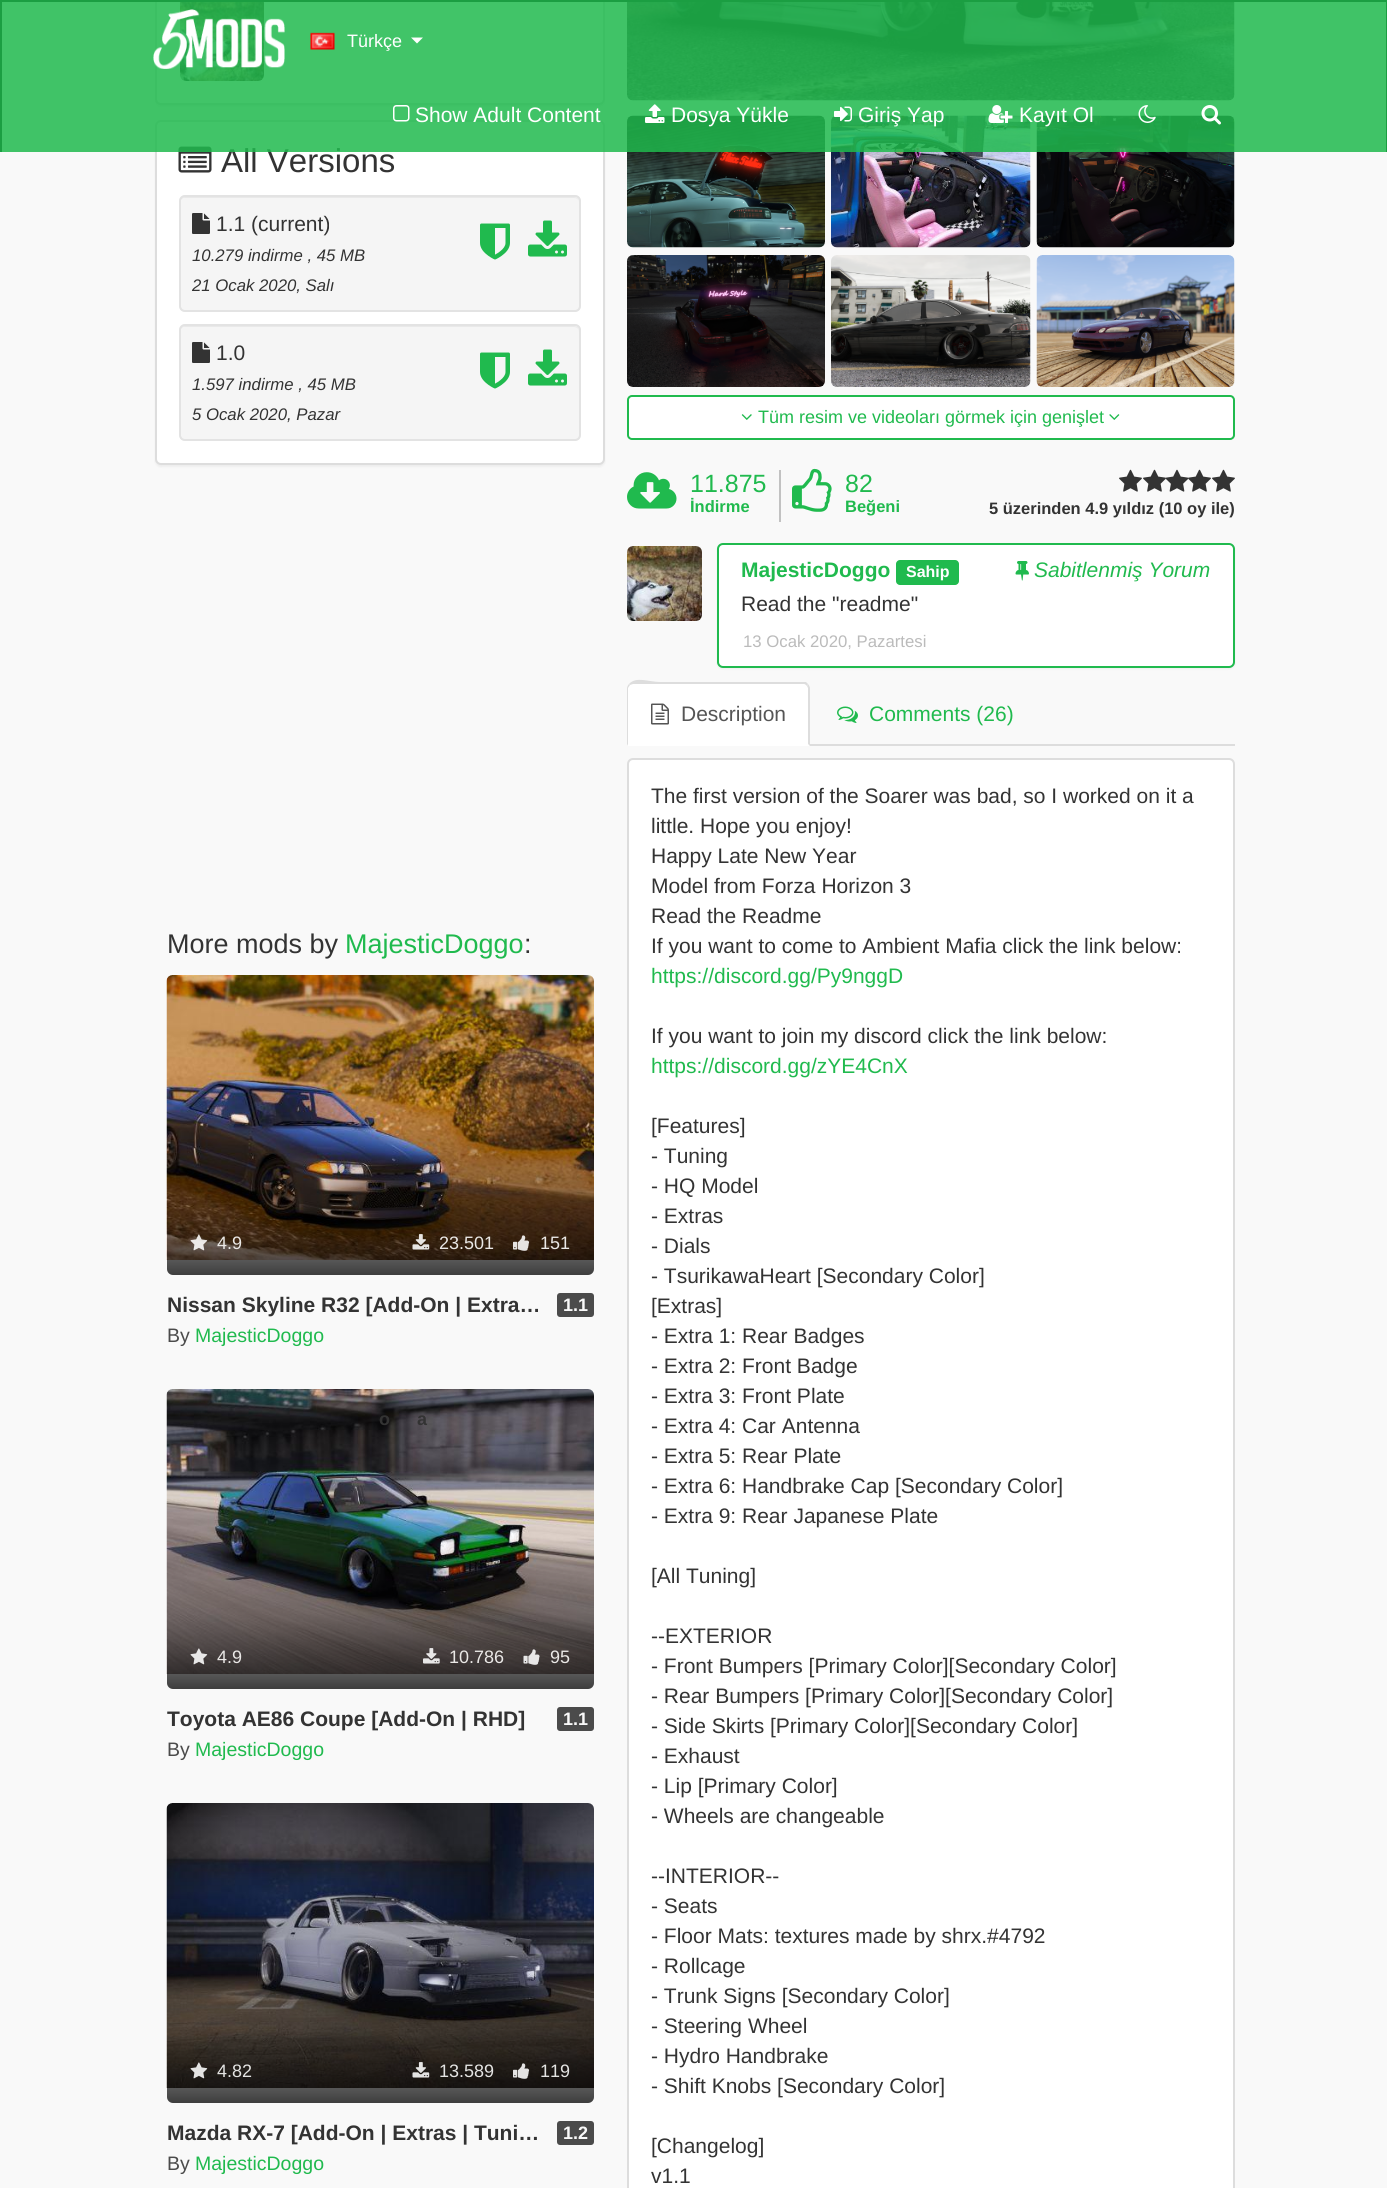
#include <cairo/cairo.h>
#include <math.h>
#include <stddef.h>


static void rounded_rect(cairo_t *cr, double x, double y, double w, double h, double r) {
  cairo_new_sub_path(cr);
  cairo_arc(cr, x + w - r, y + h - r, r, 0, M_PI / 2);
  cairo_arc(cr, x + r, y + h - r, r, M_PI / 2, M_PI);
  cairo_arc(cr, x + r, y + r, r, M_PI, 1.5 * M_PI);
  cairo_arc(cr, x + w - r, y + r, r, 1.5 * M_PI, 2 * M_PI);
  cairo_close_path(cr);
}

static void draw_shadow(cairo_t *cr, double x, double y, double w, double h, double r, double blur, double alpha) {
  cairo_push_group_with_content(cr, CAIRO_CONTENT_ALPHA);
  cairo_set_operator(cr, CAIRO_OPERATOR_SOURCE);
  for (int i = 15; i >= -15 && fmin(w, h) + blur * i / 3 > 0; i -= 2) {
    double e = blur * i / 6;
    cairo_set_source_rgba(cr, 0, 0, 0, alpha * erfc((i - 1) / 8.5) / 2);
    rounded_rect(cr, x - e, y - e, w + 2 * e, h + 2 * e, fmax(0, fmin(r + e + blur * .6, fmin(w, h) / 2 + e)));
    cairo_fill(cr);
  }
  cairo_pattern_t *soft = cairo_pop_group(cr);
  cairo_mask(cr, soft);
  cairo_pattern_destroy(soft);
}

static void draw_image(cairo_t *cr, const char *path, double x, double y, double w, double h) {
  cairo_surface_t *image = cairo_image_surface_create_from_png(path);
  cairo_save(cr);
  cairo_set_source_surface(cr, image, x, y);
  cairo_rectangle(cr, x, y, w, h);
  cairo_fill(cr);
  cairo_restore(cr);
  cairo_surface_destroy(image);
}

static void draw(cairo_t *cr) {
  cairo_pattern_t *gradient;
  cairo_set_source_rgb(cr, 249 / 255.0, 249 / 255.0, 249 / 255.0);
  cairo_paint(cr);
  cairo_set_source_rgb(cr, 0, 0, 0);
  draw_shadow(cr, 155, -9, 450, 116, 6, 1, 0.05);
  cairo_set_source_rgb(cr, 1, 1, 1);
  rounded_rect(cr, 156, -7, 448, 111, 5);
  cairo_fill_preserve(cr);
  cairo_set_source_rgb(cr, 221 / 255.0, 221 / 255.0, 221 / 255.0);
  cairo_stroke(cr);
  cairo_set_source_rgb(cr, 27 / 255.0, 158 / 255.0, 66 / 255.0);
  cairo_rectangle(cr, 0, 0, 1387, 2);
  cairo_fill(cr);
  cairo_rectangle(cr, 1386, 0, 1, 152);
  cairo_fill(cr);
  cairo_rectangle(cr, 0, 0, 2, 152);
  cairo_fill(cr);
  draw_image(cr, "images/9.png", 180, 2, 84, 79);
  cairo_set_source_rgb(cr, 0, 0, 0);
  draw_shadow(cr, 155, 122, 450, 345, 6, 1, 0.05);
  cairo_set_source_rgb(cr, 1, 1, 1);
  rounded_rect(cr, 156, 121, 448, 343, 5);
  cairo_fill_preserve(cr);
  cairo_set_source_rgb(cr, 221 / 255.0, 221 / 255.0, 221 / 255.0);
  cairo_stroke(cr);
  draw_image(cr, "images/10.png", 178, 146, 34, 27);
  cairo_set_source_rgb(cr, 245 / 255.0, 245 / 255.0, 245 / 255.0);
  rounded_rect(cr, 179, 195, 402, 117, 6);
  cairo_fill(cr);
  cairo_set_source_rgb(cr, 233 / 255.0, 233 / 255.0, 233 / 255.0);
  cairo_new_path(cr);
  cairo_move_to(cr, 184, 198);
  cairo_line_to(cr, 574, 198);
  cairo_curve_to(cr, 577, 198, 579, 200, 579, 202);
  cairo_curve_to(cr, 579, 199, 577, 197, 574, 197);
  cairo_line_to(cr, 185, 197);
  cairo_curve_to(cr, 182, 197, 180, 199, 180, 202);
  cairo_curve_to(cr, 180, 200, 182, 198, 184, 198);
  cairo_close_path(cr);
  cairo_fill(cr);
  rounded_rect(cr, 180, 196, 400, 115, 5);
  cairo_set_source_rgb(cr, 227 / 255.0, 227 / 255.0, 227 / 255.0);
  cairo_stroke(cr);
  draw_image(cr, "images/11.png", 192, 213, 18, 21);
  draw_image(cr, "images/12.png", 480, 223, 30, 37);
  draw_image(cr, "images/13.png", 528, 220, 39, 37);
  cairo_set_source_rgb(cr, 245 / 255.0, 245 / 255.0, 245 / 255.0);
  rounded_rect(cr, 179, 324, 402, 117, 6);
  cairo_fill(cr);
  cairo_set_source_rgb(cr, 233 / 255.0, 233 / 255.0, 233 / 255.0);
  cairo_new_path(cr);
  cairo_move_to(cr, 184, 327);
  cairo_line_to(cr, 574, 327);
  cairo_curve_to(cr, 577, 327, 579, 329, 579, 332);
  cairo_line_to(cr, 579, 331);
  cairo_curve_to(cr, 579, 328, 577, 326, 574, 326);
  cairo_line_to(cr, 185, 326);
  cairo_curve_to(cr, 182, 326, 180, 328, 180, 331);
  cairo_line_to(cr, 180, 332);
  cairo_curve_to(cr, 180, 329, 182, 327, 184, 327);
  cairo_close_path(cr);
  cairo_fill(cr);
  rounded_rect(cr, 180, 325, 400, 115, 5);
  cairo_set_source_rgb(cr, 227 / 255.0, 227 / 255.0, 227 / 255.0);
  cairo_stroke(cr);
  draw_image(cr, "images/11.png", 192, 342, 18, 21);
  draw_image(cr, "images/12.png", 480, 352, 30, 37);
  draw_image(cr, "images/13.png", 528, 349, 39, 37);
  draw_image(cr, "images/14.png", 166, 975, 428, 285);
  gradient = cairo_pattern_create_linear(380, 975, 380, 1275);
  cairo_pattern_add_color_stop_rgba(gradient, 0.5, 0, 0, 0, 0);
  cairo_pattern_add_color_stop_rgba(gradient, 0.75, 0, 0, 0, 0.25);
  cairo_pattern_add_color_stop_rgba(gradient, 1, 0, 0, 0, 0.75);
  cairo_set_source(cr, gradient);
  cairo_pattern_destroy(gradient);
  rounded_rect(cr, 167, 975, 427, 300, 6);
  cairo_fill(cr);
  draw_image(cr, "images/15.png", 190, 1234, 18, 17);
  draw_image(cr, "images/16.png", 412, 1234, 18, 16);
  draw_image(cr, "images/17.png", 513, 1235, 17, 16);
  cairo_set_source_rgb(cr, 75 / 255.0, 75 / 255.0, 75 / 255.0);
  rounded_rect(cr, 557, 1293, 37, 24, 3);
  cairo_fill(cr);
  draw_image(cr, "images/18.png", 166, 1389, 428, 285);
  gradient = cairo_pattern_create_linear(380, 1389, 380, 1689);
  cairo_pattern_add_color_stop_rgba(gradient, 0.5, 0, 0, 0, 0);
  cairo_pattern_add_color_stop_rgba(gradient, 0.75, 0, 0, 0, 0.25);
  cairo_pattern_add_color_stop_rgba(gradient, 1, 0, 0, 0, 0.75);
  cairo_set_source(cr, gradient);
  cairo_pattern_destroy(gradient);
  rounded_rect(cr, 167, 1389, 427, 300, 6);
  cairo_fill(cr);
  draw_image(cr, "images/19.png", 190, 1648, 18, 17);
  draw_image(cr, "images/20.png", 423, 1648, 17, 16);
  draw_image(cr, "images/21.png", 523, 1649, 17, 16);
  cairo_set_source_rgb(cr, 75 / 255.0, 75 / 255.0, 75 / 255.0);
  rounded_rect(cr, 557, 1707, 37, 24, 3);
  cairo_fill(cr);
  draw_image(cr, "images/22.png", 166, 1803, 428, 285);
  gradient = cairo_pattern_create_linear(380, 1803, 380, 2103);
  cairo_pattern_add_color_stop_rgba(gradient, 0.5, 0, 0, 0, 0);
  cairo_pattern_add_color_stop_rgba(gradient, 0.75, 0, 0, 0, 0.25);
  cairo_pattern_add_color_stop_rgba(gradient, 1, 0, 0, 0, 0.75);
  cairo_set_source(cr, gradient);
  cairo_pattern_destroy(gradient);
  rounded_rect(cr, 167, 1803, 427, 300, 6);
  cairo_fill(cr);
  draw_image(cr, "images/23.png", 190, 2062, 18, 17);
  draw_image(cr, "images/24.png", 412, 2062, 18, 16);
  draw_image(cr, "images/25.png", 513, 2063, 17, 16);
  cairo_set_source_rgb(cr, 75 / 255.0, 75 / 255.0, 75 / 255.0);
  rounded_rect(cr, 557, 2121, 37, 24, 3);
  cairo_fill(cr);
  draw_image(cr, "images/26.png", 627, 2, 608, 99);
  draw_image(cr, "images/27.png", 627, 115, 198, 133);
  draw_image(cr, "images/28.png", 831, 115, 200, 133);
  draw_image(cr, "images/29.png", 1036, 115, 199, 133);
  draw_image(cr, "images/30.png", 627, 255, 198, 132);
  draw_image(cr, "images/31.png", 831, 255, 200, 132);
  draw_image(cr, "images/32.png", 1036, 255, 199, 132);
  cairo_set_source_rgb(cr, 1, 1, 1);
  rounded_rect(cr, 628, 396, 606, 43, 4);
  cairo_fill_preserve(cr);
  cairo_set_source_rgb(cr, 32 / 255.0, 186 / 255.0, 78 / 255.0);
  cairo_stroke(cr);
  draw_image(cr, "images/33.png", 741, 414, 11, 6);
  draw_image(cr, "images/34.png", 1109, 414, 11, 6);
  draw_image(cr, "images/35.png", 627, 472, 50, 37);
  cairo_set_source_rgb(cr, 194 / 255.0, 194 / 255.0, 194 / 255.0);
  cairo_rectangle(cr, 779, 470, 2, 52);
  cairo_fill(cr);
  draw_image(cr, "images/36.png", 792, 468, 40, 44);
  draw_image(cr, "images/37.png", 1119, 469, 23, 23);
  draw_image(cr, "images/37.png", 1143, 469, 23, 23);
  draw_image(cr, "images/38.png", 1165, 469, 24, 23);
  draw_image(cr, "images/39.png", 1188, 469, 23, 23);
  draw_image(cr, "images/37.png", 1212, 469, 23, 23);
  draw_image(cr, "images/40.png", 627, 546, 75, 75);
  cairo_set_source_rgb(cr, 0, 0, 0);
  draw_shadow(cr, 717, 545, 518, 124, 6, 1, 0.05);
  cairo_set_source_rgb(cr, 1, 1, 1);
  rounded_rect(cr, 718, 544, 516, 123, 5);
  cairo_fill_preserve(cr);
  cairo_set_source_rgb(cr, 32 / 255.0, 186 / 255.0, 78 / 255.0);
  cairo_stroke(cr);
  rounded_rect(cr, 896, 560, 63, 25, 4);
  cairo_fill(cr);
  draw_image(cr, "images/41.png", 1015, 561, 14, 20);
  cairo_set_source_rgb(cr, 221 / 255.0, 221 / 255.0, 221 / 255.0);
  cairo_rectangle(cr, 810, 744, 425, 2);
  cairo_fill(cr);
  cairo_set_source_rgb(cr, 1, 1, 1);
  cairo_new_path(cr);
  cairo_move_to(cr, 633, 683);
  cairo_line_to(cr, 804, 683);
  cairo_curve_to(cr, 807.5, 683, 810, 685.5, 810, 689);
  cairo_line_to(cr, 810, 746);
  cairo_line_to(cr, 627, 746);
  cairo_line_to(cr, 627, 689);
  cairo_curve_to(cr, 627, 685.5, 629.5, 683, 633, 683);
  cairo_close_path(cr);
  cairo_fill(cr);
  cairo_set_source_rgb(cr, 221 / 255.0, 221 / 255.0, 221 / 255.0);
  cairo_new_path(cr);
  cairo_move_to(cr, 633, 684);
  cairo_line_to(cr, 630, 685);
  cairo_line_to(cr, 629, 684);
  cairo_curve_to(cr, 636, 676, 649, 682, 660, 682);
  cairo_line_to(cr, 806, 682);
  cairo_line_to(cr, 808, 684);
  cairo_line_to(cr, 807, 686);
  cairo_curve_to(cr, 806, 685, 805, 684, 804, 684);
  cairo_close_path(cr);
  cairo_fill(cr);
  cairo_new_path(cr);
  cairo_move_to(cr, 810, 746);
  cairo_line_to(cr, 810, 688);
  cairo_curve_to(cr, 810, 687, 809, 685, 808, 684);
  cairo_line_to(cr, 807, 686);
  cairo_line_to(cr, 808, 688);
  cairo_line_to(cr, 808, 744);
  cairo_close_path(cr);
  cairo_fill(cr);
  cairo_new_path(cr);
  cairo_move_to(cr, 627, 746);
  cairo_line_to(cr, 628, 744);
  cairo_line_to(cr, 628, 688);
  cairo_line_to(cr, 630, 685);
  cairo_line_to(cr, 629, 684);
  cairo_curve_to(cr, 628, 685, 627, 687, 627, 688);
  cairo_close_path(cr);
  cairo_fill(cr);
  draw_image(cr, "images/42.png", 651, 703, 18, 22);
  draw_image(cr, "images/43.png", 837, 706, 21, 17);
  cairo_set_source_rgb(cr, 1, 1, 1);
  rounded_rect(cr, 628, 759, 606, 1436, 5);
  cairo_fill_preserve(cr);
  cairo_set_source_rgb(cr, 221 / 255.0, 221 / 255.0, 221 / 255.0);
  cairo_stroke(cr);
  cairo_select_font_face(cr, "Liberation Sans", CAIRO_FONT_SLANT_NORMAL, CAIRO_FONT_WEIGHT_NORMAL);
  cairo_set_font_size(cr, 33);
  cairo_set_source_rgb(cr, 51 / 255.0, 51 / 255.0, 51 / 255.0);
  cairo_move_to(cr, 221, 172);
  cairo_show_text(cr, "All Versions");
  cairo_set_source_rgba(cr, 32 / 255.0, 186 / 255.0, 78 / 255.0, 0.85);
  cairo_rectangle(cr, 2, 2, 1384, 150);
  cairo_fill(cr);
  draw_image(cr, "images/8.png", 1201, 105, 20, 20);
  draw_image(cr, "images/7.png", 1138, 105, 18, 18);
  cairo_set_font_size(cr, 21);
  cairo_set_source_rgb(cr, 1, 1, 1);
  cairo_move_to(cr, 1019, 122);
  cairo_show_text(cr, "Kayıt Ol");
  draw_image(cr, "images/6.png", 988, 105, 25, 18);
  cairo_move_to(cr, 858, 122);
  cairo_show_text(cr, "Giriş Yap");
  draw_image(cr, "images/5.png", 834, 106, 18, 16);
  cairo_move_to(cr, 671, 122);
  cairo_show_text(cr, "Dosya Yükle");
  draw_image(cr, "images/4.png", 645, 104, 20, 19);
  cairo_move_to(cr, 415, 122);
  cairo_show_text(cr, "Show Adult Content");
  draw_image(cr, "images/3.png", 393, 105, 17, 17);
  cairo_new_path(cr);
  cairo_move_to(cr, 411, 37.5);
  cairo_line_to(cr, 423, 37.5);
  cairo_line_to(cr, 417, 43.5);
  cairo_close_path(cr);
  cairo_fill(cr);
  cairo_set_font_size(cr, 18);
  cairo_move_to(cr, 347, 47);
  cairo_show_text(cr, "Türkçe");
  draw_image(cr, "images/2.png", 310, 32, 25, 18);
  draw_image(cr, "images/1.png", 153, 9, 132, 60);
  cairo_set_font_size(cr, 21);
  cairo_set_source_rgb(cr, 51 / 255.0, 51 / 255.0, 51 / 255.0);
  cairo_move_to(cr, 216, 231);
  cairo_show_text(cr, "1.1 (current)");
  cairo_select_font_face(cr, "Liberation Sans", CAIRO_FONT_SLANT_ITALIC, CAIRO_FONT_WEIGHT_NORMAL);
  cairo_set_font_size(cr, 16.75);
  cairo_move_to(cr, 192, 261);
  cairo_show_text(cr, "10.279 indirme , 45 MB");
  cairo_move_to(cr, 192, 291);
  cairo_show_text(cr, "21 Ocak 2020, Salı");
  cairo_select_font_face(cr, "Liberation Sans", CAIRO_FONT_SLANT_NORMAL, CAIRO_FONT_WEIGHT_NORMAL);
  cairo_set_font_size(cr, 21);
  cairo_move_to(cr, 216, 360);
  cairo_show_text(cr, "1.0");
  cairo_select_font_face(cr, "Liberation Sans", CAIRO_FONT_SLANT_ITALIC, CAIRO_FONT_WEIGHT_NORMAL);
  cairo_set_font_size(cr, 16.75);
  cairo_move_to(cr, 192, 390);
  cairo_show_text(cr, "1.597 indirme , 45 MB");
  cairo_move_to(cr, 192, 420);
  cairo_show_text(cr, "5 Ocak 2020, Pazar");
  cairo_select_font_face(cr, "Liberation Sans", CAIRO_FONT_SLANT_NORMAL, CAIRO_FONT_WEIGHT_NORMAL);
  cairo_set_font_size(cr, 27);
  cairo_move_to(cr, 167, 953);
  cairo_show_text(cr, "More mods by");
  cairo_set_source_rgb(cr, 32 / 255.0, 186 / 255.0, 78 / 255.0);
  cairo_move_to(cr, 345, 953);
  cairo_show_text(cr, "MajesticDoggo");
  cairo_set_source_rgb(cr, 51 / 255.0, 51 / 255.0, 51 / 255.0);
  cairo_move_to(cr, 524, 953);
  cairo_show_text(cr, ":");
  cairo_set_font_size(cr, 18);
  cairo_set_source_rgb(cr, 234 / 255.0, 232 / 255.0, 230 / 255.0);
  cairo_move_to(cr, 217, 1249);
  cairo_show_text(cr, "4.9");
  cairo_move_to(cr, 439, 1249);
  cairo_show_text(cr, "23.501");
  cairo_move_to(cr, 540, 1249);
  cairo_show_text(cr, "151");
  cairo_select_font_face(cr, "Liberation Sans", CAIRO_FONT_SLANT_NORMAL, CAIRO_FONT_WEIGHT_BOLD);
  cairo_set_font_size(cr, 21);
  cairo_set_source_rgb(cr, 51 / 255.0, 51 / 255.0, 51 / 255.0);
  cairo_move_to(cr, 167, 1312);
  cairo_show_text(cr, "Nissan Skyline R32 [Add-On | Extra…");
  cairo_set_font_size(cr, 18);
  cairo_set_source_rgb(cr, 249 / 255.0, 249 / 255.0, 249 / 255.0);
  cairo_move_to(cr, 563, 1311);
  cairo_show_text(cr, "1.1");
  cairo_select_font_face(cr, "Liberation Sans", CAIRO_FONT_SLANT_NORMAL, CAIRO_FONT_WEIGHT_NORMAL);
  cairo_set_font_size(cr, 19.5);
  cairo_set_source_rgb(cr, 75 / 255.0, 75 / 255.0, 75 / 255.0);
  cairo_move_to(cr, 167, 1342);
  cairo_show_text(cr, "By");
  cairo_set_source_rgb(cr, 32 / 255.0, 186 / 255.0, 78 / 255.0);
  cairo_move_to(cr, 195, 1342);
  cairo_show_text(cr, "MajesticDoggo");
  cairo_select_font_face(cr, "Liberation Sans", CAIRO_FONT_SLANT_NORMAL, CAIRO_FONT_WEIGHT_BOLD);
  cairo_set_font_size(cr, 18);
  cairo_set_source_rgb(cr, 51 / 255.0, 51 / 255.0, 51 / 255.0);
  cairo_move_to(cr, 379, 1425);
  cairo_show_text(cr, "o");
  cairo_move_to(cr, 417, 1425);
  cairo_show_text(cr, "a");
  cairo_select_font_face(cr, "Liberation Sans", CAIRO_FONT_SLANT_NORMAL, CAIRO_FONT_WEIGHT_NORMAL);
  cairo_set_source_rgb(cr, 234 / 255.0, 232 / 255.0, 230 / 255.0);
  cairo_move_to(cr, 217, 1663);
  cairo_show_text(cr, "4.9");
  cairo_move_to(cr, 449, 1663);
  cairo_show_text(cr, "10.786");
  cairo_move_to(cr, 550, 1663);
  cairo_show_text(cr, "95");
  cairo_save(cr);
  cairo_rectangle(cr, 167, 1704, 375, 30);
  cairo_clip(cr);
  cairo_select_font_face(cr, "Liberation Sans", CAIRO_FONT_SLANT_NORMAL, CAIRO_FONT_WEIGHT_BOLD);
  cairo_set_font_size(cr, 21);
  cairo_set_source_rgb(cr, 51 / 255.0, 51 / 255.0, 51 / 255.0);
  cairo_move_to(cr, 167, 1726);
  cairo_show_text(cr, "Toyota AE86 Coupe [Add-On | RHD]");
  cairo_restore(cr);
  cairo_select_font_face(cr, "Liberation Sans", CAIRO_FONT_SLANT_NORMAL, CAIRO_FONT_WEIGHT_BOLD);
  cairo_set_source_rgb(cr, 249 / 255.0, 249 / 255.0, 249 / 255.0);
  cairo_move_to(cr, 563, 1725);
  cairo_show_text(cr, "1.1");
  cairo_select_font_face(cr, "Liberation Sans", CAIRO_FONT_SLANT_NORMAL, CAIRO_FONT_WEIGHT_NORMAL);
  cairo_set_font_size(cr, 19.5);
  cairo_set_source_rgb(cr, 75 / 255.0, 75 / 255.0, 75 / 255.0);
  cairo_move_to(cr, 167, 1756);
  cairo_show_text(cr, "By");
  cairo_set_source_rgb(cr, 32 / 255.0, 186 / 255.0, 78 / 255.0);
  cairo_move_to(cr, 195, 1756);
  cairo_show_text(cr, "MajesticDoggo");
  cairo_set_font_size(cr, 18);
  cairo_set_source_rgb(cr, 228 / 255.0, 228 / 255.0, 227 / 255.0);
  cairo_move_to(cr, 217, 2077);
  cairo_show_text(cr, "4.82");
  cairo_move_to(cr, 439, 2077);
  cairo_show_text(cr, "13.589");
  cairo_move_to(cr, 540, 2077);
  cairo_show_text(cr, "119");
  cairo_select_font_face(cr, "Liberation Sans", CAIRO_FONT_SLANT_NORMAL, CAIRO_FONT_WEIGHT_BOLD);
  cairo_set_font_size(cr, 21);
  cairo_set_source_rgb(cr, 51 / 255.0, 51 / 255.0, 51 / 255.0);
  cairo_move_to(cr, 167, 2140);
  cairo_show_text(cr, "Mazda RX-7 [Add-On | Extras | Tuni…");
  cairo_set_font_size(cr, 18);
  cairo_set_source_rgb(cr, 249 / 255.0, 249 / 255.0, 249 / 255.0);
  cairo_move_to(cr, 563, 2139);
  cairo_show_text(cr, "1.2");
  cairo_select_font_face(cr, "Liberation Sans", CAIRO_FONT_SLANT_NORMAL, CAIRO_FONT_WEIGHT_NORMAL);
  cairo_set_font_size(cr, 19.5);
  cairo_set_source_rgb(cr, 75 / 255.0, 75 / 255.0, 75 / 255.0);
  cairo_move_to(cr, 167, 2170);
  cairo_show_text(cr, "By");
  cairo_set_source_rgb(cr, 32 / 255.0, 186 / 255.0, 78 / 255.0);
  cairo_move_to(cr, 195, 2170);
  cairo_show_text(cr, "MajesticDoggo");
  cairo_set_font_size(cr, 18);
  cairo_move_to(cr, 758, 423);
  cairo_show_text(cr, "Tüm resim ve videoları görmek için genişlet");
  cairo_set_font_size(cr, 25);
  cairo_move_to(cr, 690, 492);
  cairo_show_text(cr, "11.875");
  cairo_select_font_face(cr, "Liberation Sans", CAIRO_FONT_SLANT_NORMAL, CAIRO_FONT_WEIGHT_BOLD);
  cairo_set_font_size(cr, 16.5);
  cairo_move_to(cr, 690, 512);
  cairo_show_text(cr, "İndirme");
  cairo_select_font_face(cr, "Liberation Sans", CAIRO_FONT_SLANT_NORMAL, CAIRO_FONT_WEIGHT_NORMAL);
  cairo_set_font_size(cr, 25);
  cairo_move_to(cr, 845, 492);
  cairo_show_text(cr, "82");
  cairo_select_font_face(cr, "Liberation Sans", CAIRO_FONT_SLANT_NORMAL, CAIRO_FONT_WEIGHT_BOLD);
  cairo_set_font_size(cr, 16.5);
  cairo_move_to(cr, 845, 512);
  cairo_show_text(cr, "Beğeni");
  cairo_set_source_rgb(cr, 51 / 255.0, 51 / 255.0, 51 / 255.0);
  cairo_move_to(cr, 989, 514);
  cairo_show_text(cr, "5 üzerinden 4.9 yıldız (10 oy ile)");
  cairo_set_font_size(cr, 21);
  cairo_set_source_rgb(cr, 32 / 255.0, 186 / 255.0, 78 / 255.0);
  cairo_move_to(cr, 741, 577);
  cairo_show_text(cr, "MajesticDoggo");
  cairo_set_font_size(cr, 16);
  cairo_set_source_rgb(cr, 1, 1, 1);
  cairo_move_to(cr, 906, 577);
  cairo_show_text(cr, "Sahip");
  cairo_select_font_face(cr, "Liberation Sans", CAIRO_FONT_SLANT_ITALIC, CAIRO_FONT_WEIGHT_NORMAL);
  cairo_set_font_size(cr, 21);
  cairo_set_source_rgb(cr, 32 / 255.0, 186 / 255.0, 78 / 255.0);
  cairo_move_to(cr, 1034, 577);
  cairo_show_text(cr, "Sabitlenmiş Yorum");
  cairo_select_font_face(cr, "Liberation Sans", CAIRO_FONT_SLANT_NORMAL, CAIRO_FONT_WEIGHT_NORMAL);
  cairo_set_source_rgb(cr, 51 / 255.0, 51 / 255.0, 51 / 255.0);
  cairo_move_to(cr, 741, 611);
  cairo_show_text(cr, "Read the \"readme\"");
  cairo_set_font_size(cr, 16.75);
  cairo_set_source_rgb(cr, 187 / 255.0, 187 / 255.0, 187 / 255.0);
  cairo_move_to(cr, 743, 647);
  cairo_show_text(cr, "13 Ocak 2020, Pazartesi");
  cairo_set_font_size(cr, 21);
  cairo_set_source_rgb(cr, 85 / 255.0, 85 / 255.0, 85 / 255.0);
  cairo_move_to(cr, 681, 721);
  cairo_show_text(cr, "Description");
  cairo_set_source_rgb(cr, 32 / 255.0, 186 / 255.0, 78 / 255.0);
  cairo_move_to(cr, 869, 721);
  cairo_show_text(cr, "Comments (26)");
  cairo_set_source_rgb(cr, 51 / 255.0, 51 / 255.0, 51 / 255.0);
  cairo_move_to(cr, 651, 803);
  cairo_show_text(cr, "The first version of the Soarer was bad, so I worked on it a");
  cairo_move_to(cr, 651, 833);
  cairo_show_text(cr, "little. Hope you enjoy!");
  cairo_move_to(cr, 651, 863);
  cairo_show_text(cr, "Happy Late New Year");
  cairo_move_to(cr, 651, 893);
  cairo_show_text(cr, "Model from Forza Horizon 3");
  cairo_move_to(cr, 651, 923);
  cairo_show_text(cr, "Read the Readme");
  cairo_move_to(cr, 651, 953);
  cairo_show_text(cr, "If you want to come to Ambient Mafia click the link below:");
  cairo_set_source_rgb(cr, 32 / 255.0, 186 / 255.0, 78 / 255.0);
  cairo_move_to(cr, 651, 983);
  cairo_show_text(cr, "https://discord.gg/Py9nggD");
  cairo_set_source_rgb(cr, 51 / 255.0, 51 / 255.0, 51 / 255.0);
  cairo_move_to(cr, 651, 1043);
  cairo_show_text(cr, "If you want to join my discord click the link below:");
  cairo_set_source_rgb(cr, 32 / 255.0, 186 / 255.0, 78 / 255.0);
  cairo_move_to(cr, 651, 1073);
  cairo_show_text(cr, "https://discord.gg/zYE4CnX");
  cairo_set_source_rgb(cr, 51 / 255.0, 51 / 255.0, 51 / 255.0);
  cairo_move_to(cr, 651, 1133);
  cairo_show_text(cr, "[Features]");
  cairo_move_to(cr, 651, 1163);
  cairo_show_text(cr, "- Tuning");
  cairo_move_to(cr, 651, 1193);
  cairo_show_text(cr, "- HQ Model");
  cairo_move_to(cr, 651, 1223);
  cairo_show_text(cr, "- Extras");
  cairo_move_to(cr, 651, 1253);
  cairo_show_text(cr, "- Dials");
  cairo_move_to(cr, 651, 1283);
  cairo_show_text(cr, "- TsurikawaHeart [Secondary Color]");
  cairo_move_to(cr, 651, 1313);
  cairo_show_text(cr, "[Extras]");
  cairo_move_to(cr, 651, 1343);
  cairo_show_text(cr, "- Extra 1: Rear Badges");
  cairo_move_to(cr, 651, 1373);
  cairo_show_text(cr, "- Extra 2: Front Badge");
  cairo_move_to(cr, 651, 1403);
  cairo_show_text(cr, "- Extra 3: Front Plate");
  cairo_move_to(cr, 651, 1433);
  cairo_show_text(cr, "- Extra 4: Car Antenna");
  cairo_move_to(cr, 651, 1463);
  cairo_show_text(cr, "- Extra 5: Rear Plate");
  cairo_move_to(cr, 651, 1493);
  cairo_show_text(cr, "- Extra 6: Handbrake Cap [Secondary Color]");
  cairo_move_to(cr, 651, 1523);
  cairo_show_text(cr, "- Extra 9: Rear Japanese Plate");
  cairo_move_to(cr, 651, 1583);
  cairo_show_text(cr, "[All Tuning]");
  cairo_move_to(cr, 651, 1643);
  cairo_show_text(cr, "--EXTERIOR");
  cairo_move_to(cr, 651, 1673);
  cairo_show_text(cr, "- Front Bumpers [Primary Color][Secondary Color]");
  cairo_move_to(cr, 651, 1703);
  cairo_show_text(cr, "- Rear Bumpers [Primary Color][Secondary Color]");
  cairo_move_to(cr, 651, 1733);
  cairo_show_text(cr, "- Side Skirts [Primary Color][Secondary Color]");
  cairo_move_to(cr, 651, 1763);
  cairo_show_text(cr, "- Exhaust");
  cairo_move_to(cr, 651, 1793);
  cairo_show_text(cr, "- Lip [Primary Color]");
  cairo_move_to(cr, 651, 1823);
  cairo_show_text(cr, "- Wheels are changeable");
  cairo_move_to(cr, 651, 1883);
  cairo_show_text(cr, "--INTERIOR--");
  cairo_move_to(cr, 651, 1913);
  cairo_show_text(cr, "- Seats");
  cairo_move_to(cr, 651, 1943);
  cairo_show_text(cr, "- Floor Mats: textures made by shrx.#4792");
  cairo_move_to(cr, 651, 1973);
  cairo_show_text(cr, "- Rollcage");
  cairo_move_to(cr, 651, 2003);
  cairo_show_text(cr, "- Trunk Signs [Secondary Color]");
  cairo_move_to(cr, 651, 2033);
  cairo_show_text(cr, "- Steering Wheel");
  cairo_move_to(cr, 651, 2063);
  cairo_show_text(cr, "- Hydro Handbrake");
  cairo_move_to(cr, 651, 2093);
  cairo_show_text(cr, "- Shift Knobs [Secondary Color]");
  cairo_move_to(cr, 651, 2153);
  cairo_show_text(cr, "[Changelog]");
  cairo_move_to(cr, 651, 2183);
  cairo_show_text(cr, "v1.1");
}

int main(void) {
  cairo_surface_t *surface = cairo_image_surface_create(CAIRO_FORMAT_RGB24, 1387, 2188);
  cairo_t *cr = cairo_create(surface);
  cairo_font_options_t *options = cairo_font_options_create();
  cairo_font_options_set_hint_metrics(options, CAIRO_HINT_METRICS_OFF);
  cairo_font_options_set_hint_style(options, CAIRO_HINT_STYLE_NONE);
  cairo_set_font_options(cr, options);
  cairo_set_miter_limit(cr, 4);
  draw(cr);
  cairo_surface_write_to_png(surface, "out.png");
  cairo_font_options_destroy(options);
  cairo_destroy(cr);
  cairo_surface_destroy(surface);
  return 0;
}
